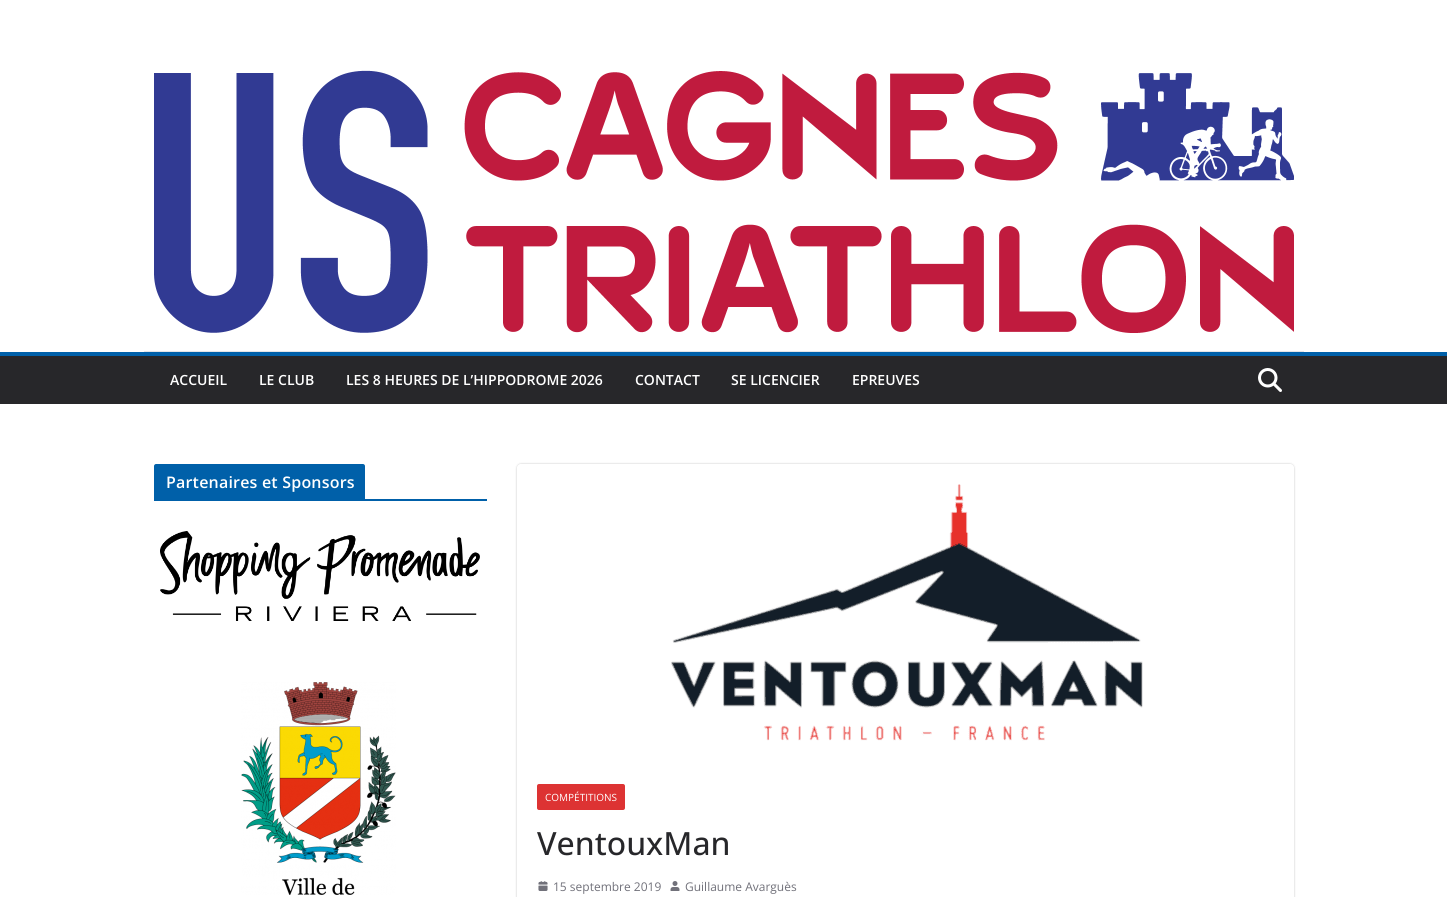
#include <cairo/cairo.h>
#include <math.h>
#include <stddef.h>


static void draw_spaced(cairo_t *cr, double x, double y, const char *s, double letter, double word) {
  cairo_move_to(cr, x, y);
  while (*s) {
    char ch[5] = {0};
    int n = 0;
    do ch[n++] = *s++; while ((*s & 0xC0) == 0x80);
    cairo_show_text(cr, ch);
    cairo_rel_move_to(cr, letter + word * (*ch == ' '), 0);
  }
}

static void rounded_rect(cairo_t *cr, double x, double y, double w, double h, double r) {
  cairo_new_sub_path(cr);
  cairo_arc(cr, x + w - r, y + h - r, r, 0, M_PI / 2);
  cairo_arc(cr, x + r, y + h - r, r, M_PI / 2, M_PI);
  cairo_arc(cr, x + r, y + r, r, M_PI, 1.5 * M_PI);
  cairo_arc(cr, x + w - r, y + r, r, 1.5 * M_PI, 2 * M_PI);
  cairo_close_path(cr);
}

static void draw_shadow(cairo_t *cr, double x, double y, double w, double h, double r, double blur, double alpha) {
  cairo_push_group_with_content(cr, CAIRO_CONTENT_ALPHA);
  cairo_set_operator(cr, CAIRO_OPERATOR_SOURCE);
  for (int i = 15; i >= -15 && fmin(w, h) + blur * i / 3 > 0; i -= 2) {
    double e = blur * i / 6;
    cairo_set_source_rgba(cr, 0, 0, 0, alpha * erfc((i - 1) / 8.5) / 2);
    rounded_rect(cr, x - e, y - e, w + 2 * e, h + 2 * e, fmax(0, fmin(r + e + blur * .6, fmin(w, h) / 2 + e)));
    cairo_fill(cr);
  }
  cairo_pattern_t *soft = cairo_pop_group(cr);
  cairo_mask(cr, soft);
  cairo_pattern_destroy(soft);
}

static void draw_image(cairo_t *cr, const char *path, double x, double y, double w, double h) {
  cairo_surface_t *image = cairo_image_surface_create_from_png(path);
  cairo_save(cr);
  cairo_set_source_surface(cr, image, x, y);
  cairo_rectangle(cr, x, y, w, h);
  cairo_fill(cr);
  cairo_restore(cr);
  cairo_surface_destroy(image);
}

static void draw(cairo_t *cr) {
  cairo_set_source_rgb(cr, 1, 1, 1);
  cairo_paint(cr);
  draw_image(cr, "images/1.png", 154, 70, 1140, 263);
  cairo_set_source_rgb(cr, 228 / 255.0, 228 / 255.0, 231 / 255.0);
  cairo_rectangle(cr, 144, 351, 1160, 1);
  cairo_fill(cr);
  cairo_set_source_rgb(cr, 39 / 255.0, 39 / 255.0, 42 / 255.0);
  cairo_rectangle(cr, 0, 356, 1447, 48);
  cairo_fill(cr);
  cairo_set_source_rgb(cr, 0, 96 / 255.0, 169 / 255.0);
  cairo_rectangle(cr, 0, 352, 1447, 4);
  cairo_fill(cr);
  draw_image(cr, "images/2.png", 1258, 368, 24, 24);
  cairo_rectangle(cr, 154, 499, 333, 2);
  cairo_fill(cr);
  cairo_new_path(cr);
  cairo_move_to(cr, 156, 464);
  cairo_line_to(cr, 363, 464);
  cairo_curve_to(cr, 364, 464, 365, 465, 365, 466);
  cairo_line_to(cr, 365, 499);
  cairo_line_to(cr, 154, 499);
  cairo_line_to(cr, 154, 466);
  cairo_curve_to(cr, 154, 465, 155, 464, 156, 464);
  cairo_close_path(cr);
  cairo_fill(cr);
  draw_image(cr, "images/3.png", 160, 531, 320, 90);
  draw_image(cr, "images/4.png", 241, 682, 155, 213);
  cairo_save(cr);
  cairo_set_fill_rule(cr, CAIRO_FILL_RULE_EVEN_ODD);
  cairo_new_path(cr);
  cairo_move_to(cr, 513, 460);
  cairo_line_to(cr, 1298, 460);
  cairo_line_to(cr, 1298, 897);
  cairo_line_to(cr, 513, 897);
  cairo_close_path(cr);
  cairo_move_to(cr, 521, 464);
  cairo_line_to(cr, 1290, 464);
  cairo_curve_to(cr, 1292, 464, 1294, 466, 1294, 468);
  cairo_line_to(cr, 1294, 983);
  cairo_curve_to(cr, 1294, 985, 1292, 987, 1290, 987);
  cairo_line_to(cr, 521, 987);
  cairo_curve_to(cr, 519, 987, 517, 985, 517, 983);
  cairo_line_to(cr, 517, 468);
  cairo_curve_to(cr, 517, 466, 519, 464, 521, 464);
  cairo_close_path(cr);
  cairo_clip(cr);
  cairo_set_source_rgb(cr, 0, 0, 0);
  draw_shadow(cr, 517, 464, 777, 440, 4, 1, 0.24);
  cairo_restore(cr);
  draw_image(cr, "images/5.png", 671, 484, 472, 257);
  cairo_set_source_rgb(cr, 221 / 255.0, 51 / 255.0, 51 / 255.0);
  rounded_rect(cr, 537, 784, 88, 26, 2);
  cairo_fill(cr);
  draw_image(cr, "images/6.png", 538, 881, 10, 10);
  draw_image(cr, "images/7.png", 670, 881, 10, 10);
  cairo_select_font_face(cr, "Open Sans SemiBold", CAIRO_FONT_SLANT_NORMAL, CAIRO_FONT_WEIGHT_NORMAL);
  cairo_set_font_size(cr, 14);
  cairo_set_source_rgb(cr, 1, 1, 1);
  cairo_move_to(cr, 170, 385);
  cairo_show_text(cr, "ACCUEIL");
  cairo_move_to(cr, 259, 385);
  cairo_show_text(cr, "LE CLUB");
  cairo_move_to(cr, 346, 385);
  cairo_show_text(cr, "LES 8 HEURES DE L’HIPPODROME 2026");
  cairo_move_to(cr, 635, 385);
  cairo_show_text(cr, "CONTACT");
  cairo_move_to(cr, 731, 385);
  cairo_show_text(cr, "SE LICENCIER");
  cairo_move_to(cr, 852, 385);
  cairo_show_text(cr, "EPREUVES");
  cairo_set_font_size(cr, 16);
  draw_spaced(cr, 166, 488, "Partenaires et Sponsors", 0.2, 0);
  cairo_select_font_face(cr, "Open Sans", CAIRO_FONT_SLANT_NORMAL, CAIRO_FONT_WEIGHT_NORMAL);
  cairo_set_font_size(cr, 10);
  cairo_move_to(cr, 545, 801);
  cairo_show_text(cr, "COMPÉTITIONS");
  cairo_select_font_face(cr, "Open Sans Medium", CAIRO_FONT_SLANT_NORMAL, CAIRO_FONT_WEIGHT_NORMAL);
  cairo_set_font_size(cr, 32);
  cairo_set_source_rgb(cr, 39 / 255.0, 39 / 255.0, 42 / 255.0);
  cairo_move_to(cr, 537, 855);
  cairo_show_text(cr, "VentouxMan");
  cairo_select_font_face(cr, "Open Sans", CAIRO_FONT_SLANT_NORMAL, CAIRO_FONT_WEIGHT_NORMAL);
  cairo_set_font_size(cr, 12);
  cairo_set_source_rgb(cr, 113 / 255.0, 113 / 255.0, 122 / 255.0);
  cairo_move_to(cr, 553, 891);
  cairo_show_text(cr, "15 septembre 2019");
  cairo_move_to(cr, 685, 891);
  cairo_show_text(cr, "Guillaume Avarguès");
}

int main(void) {
  cairo_surface_t *surface = cairo_image_surface_create(CAIRO_FORMAT_RGB24, 1447, 897);
  cairo_t *cr = cairo_create(surface);
  cairo_font_options_t *options = cairo_font_options_create();
  cairo_font_options_set_hint_metrics(options, CAIRO_HINT_METRICS_OFF);
  cairo_font_options_set_hint_style(options, CAIRO_HINT_STYLE_NONE);
  cairo_set_font_options(cr, options);
  cairo_set_miter_limit(cr, 4);
  draw(cr);
  cairo_surface_write_to_png(surface, "out.png");
  cairo_font_options_destroy(options);
  cairo_destroy(cr);
  cairo_surface_destroy(surface);
  return 0;
}
